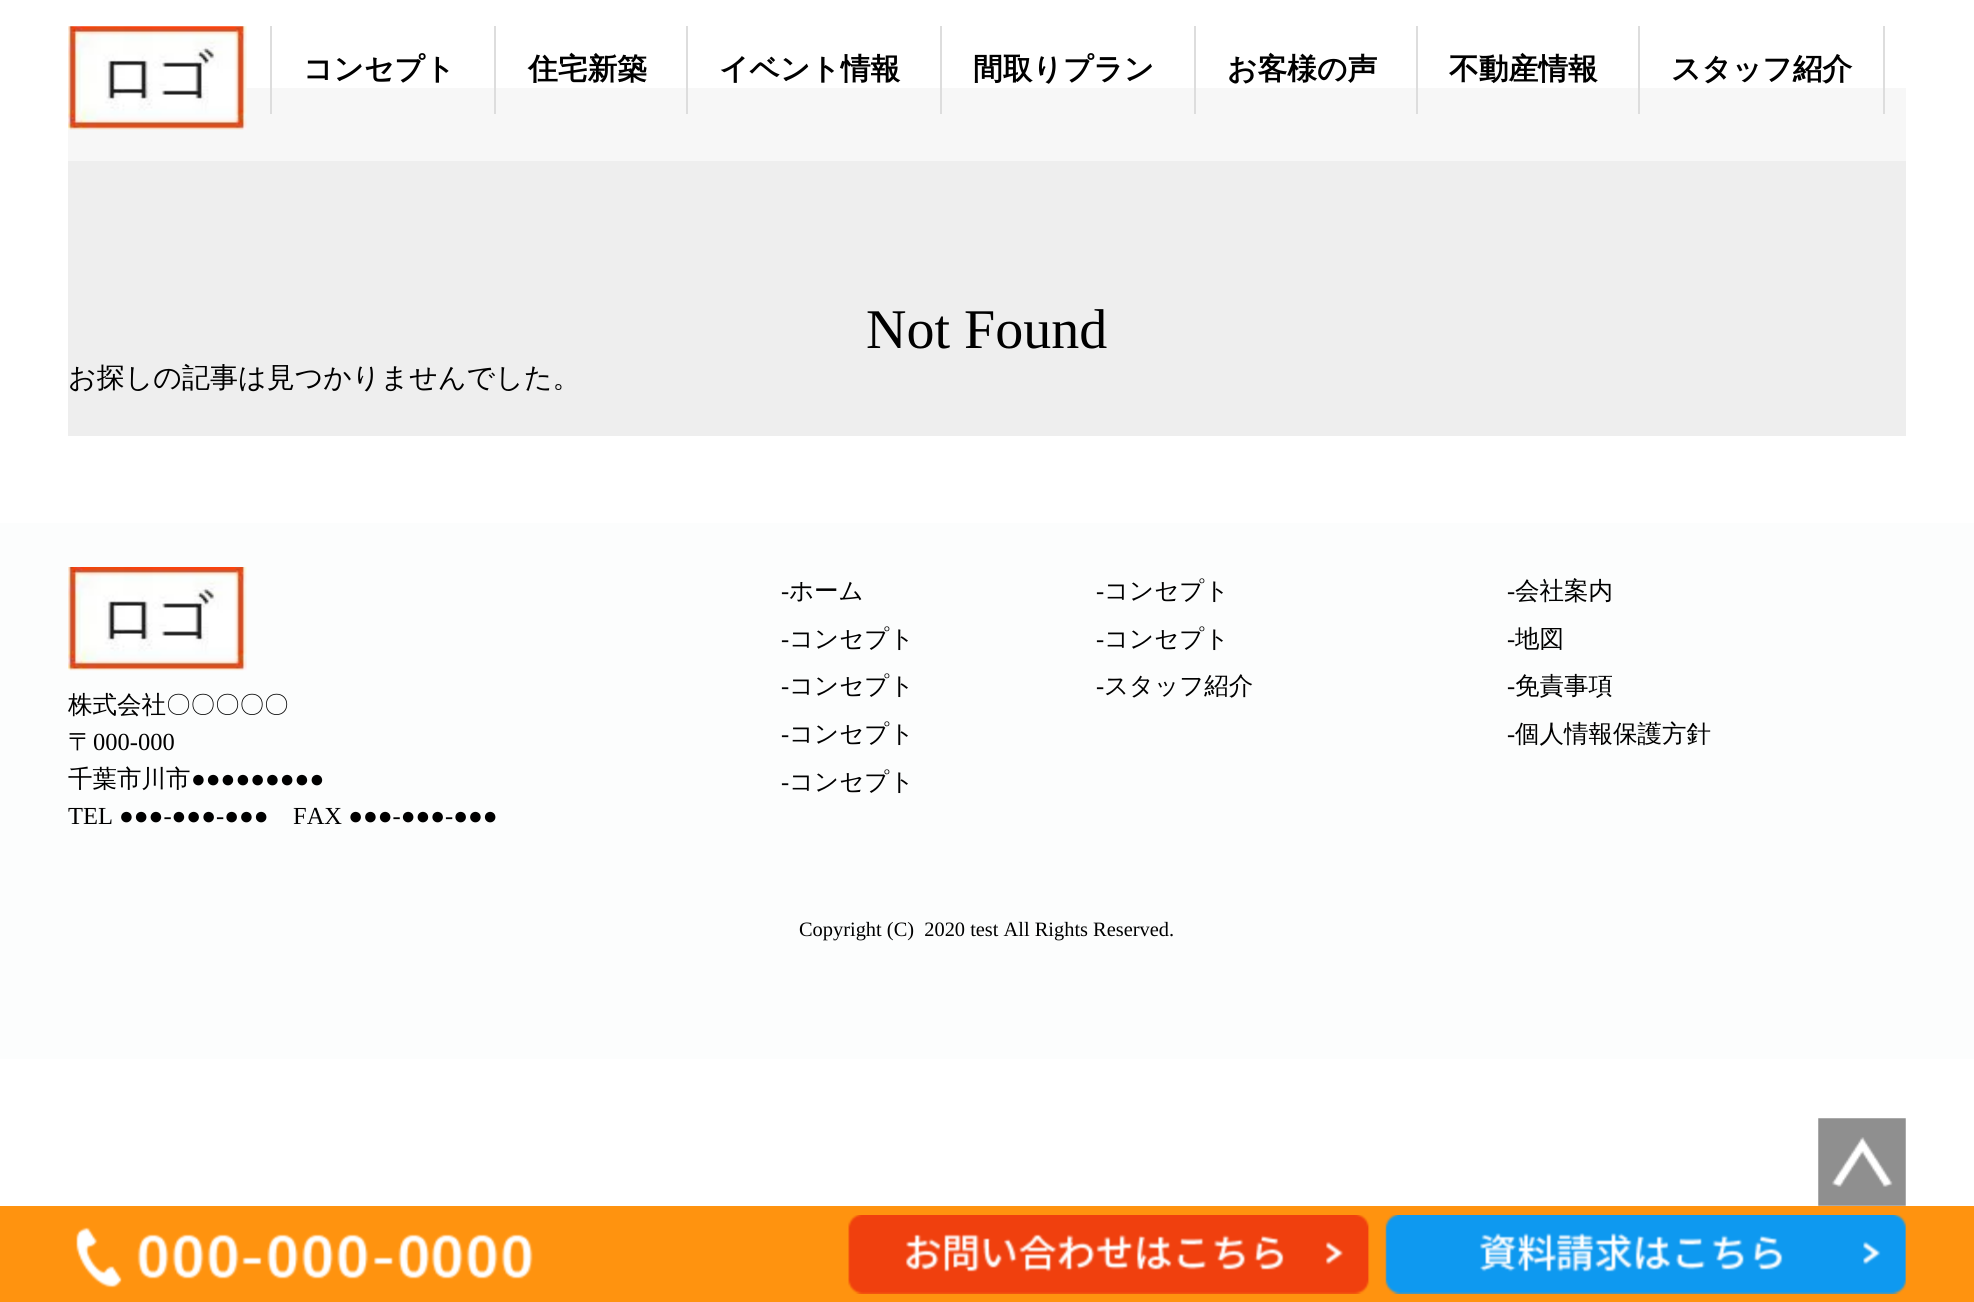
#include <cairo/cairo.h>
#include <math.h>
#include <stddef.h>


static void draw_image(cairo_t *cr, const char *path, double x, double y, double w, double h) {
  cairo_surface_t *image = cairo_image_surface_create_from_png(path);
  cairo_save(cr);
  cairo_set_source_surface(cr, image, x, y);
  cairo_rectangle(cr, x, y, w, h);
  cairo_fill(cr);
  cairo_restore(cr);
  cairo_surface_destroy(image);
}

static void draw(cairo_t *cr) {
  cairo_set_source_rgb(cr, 1, 1, 1);
  cairo_paint(cr);
  cairo_set_source_rgb(cr, 247 / 255.0, 247 / 255.0, 247 / 255.0);
  cairo_rectangle(cr, 68, 88, 1838, 73);
  cairo_fill(cr);
  draw_image(cr, "images/1.png", 68, 26, 179, 104);
  cairo_set_source_rgb(cr, 221 / 255.0, 221 / 255.0, 221 / 255.0);
  cairo_rectangle(cr, 270, 26, 2, 88);
  cairo_fill(cr);
  cairo_rectangle(cr, 494, 26, 2, 88);
  cairo_fill(cr);
  cairo_rectangle(cr, 686, 26, 2, 88);
  cairo_fill(cr);
  cairo_rectangle(cr, 940, 26, 2, 88);
  cairo_fill(cr);
  cairo_rectangle(cr, 1194, 26, 2, 88);
  cairo_fill(cr);
  cairo_rectangle(cr, 1416, 26, 2, 88);
  cairo_fill(cr);
  cairo_rectangle(cr, 1883, 26, 2, 88);
  cairo_fill(cr);
  cairo_rectangle(cr, 1638, 26, 2, 88);
  cairo_fill(cr);
  cairo_set_source_rgb(cr, 238 / 255.0, 238 / 255.0, 238 / 255.0);
  cairo_rectangle(cr, 68, 161, 1838, 275);
  cairo_fill(cr);
  cairo_set_source_rgb(cr, 252 / 255.0, 253 / 255.0, 253 / 255.0);
  cairo_rectangle(cr, 0, 523, 1974, 536);
  cairo_fill(cr);
  draw_image(cr, "images/2.png", 68, 567, 179, 104);
  cairo_set_source_rgb(cr, 1, 147 / 255.0, 15 / 255.0);
  cairo_rectangle(cr, 0, 1206, 1974, 96);
  cairo_fill(cr);
  draw_image(cr, "images/3.png", 1818, 1118, 88, 88);
  draw_image(cr, "images/4.png", 76, 1227, 457, 61);
  draw_image(cr, "images/5.png", 848, 1215, 522, 79);
  draw_image(cr, "images/6.png", 1385, 1215, 521, 79);
  cairo_select_font_face(cr, "WenQuanYi Zen Hei", CAIRO_FONT_SLANT_NORMAL, CAIRO_FONT_WEIGHT_BOLD);
  cairo_set_font_size(cr, 29.75);
  cairo_set_source_rgb(cr, 0, 0, 0);
  cairo_move_to(cr, 303, 79);
  cairo_show_text(cr, "コンセプト");
  cairo_move_to(cr, 528, 79);
  cairo_show_text(cr, "住宅新築");
  cairo_move_to(cr, 719, 79);
  cairo_show_text(cr, "イベント情報");
  cairo_move_to(cr, 973, 79);
  cairo_show_text(cr, "間取りプラン");
  cairo_move_to(cr, 1227, 79);
  cairo_show_text(cr, "お客様の声");
  cairo_move_to(cr, 1449, 79);
  cairo_show_text(cr, "不動産情報");
  cairo_move_to(cr, 1671, 79);
  cairo_show_text(cr, "スタッフ紹介");
  cairo_select_font_face(cr, "Liberation Serif", CAIRO_FONT_SLANT_NORMAL, CAIRO_FONT_WEIGHT_NORMAL);
  cairo_set_font_size(cr, 56);
  cairo_move_to(cr, 866, 348);
  cairo_show_text(cr, "Not Found");
  cairo_select_font_face(cr, "WenQuanYi Zen Hei Medium", CAIRO_FONT_SLANT_NORMAL, CAIRO_FONT_WEIGHT_NORMAL);
  cairo_set_font_size(cr, 28);
  cairo_move_to(cr, 68, 387);
  cairo_show_text(cr, "お探しの記事は見つかりませんでした。");
  cairo_set_font_size(cr, 24.5);
  cairo_move_to(cr, 68, 713);
  cairo_show_text(cr, "株式会社〇〇〇〇〇");
  cairo_move_to(cr, 68, 750);
  cairo_show_text(cr, "〒");
  cairo_select_font_face(cr, "Liberation Serif", CAIRO_FONT_SLANT_NORMAL, CAIRO_FONT_WEIGHT_NORMAL);
  cairo_move_to(cr, 93, 750);
  cairo_show_text(cr, "000-000");
  cairo_select_font_face(cr, "WenQuanYi Zen Hei Medium", CAIRO_FONT_SLANT_NORMAL, CAIRO_FONT_WEIGHT_NORMAL);
  cairo_move_to(cr, 68, 787);
  cairo_show_text(cr, "千葉市川市");
  cairo_select_font_face(cr, "Liberation Serif", CAIRO_FONT_SLANT_NORMAL, CAIRO_FONT_WEIGHT_NORMAL);
  cairo_move_to(cr, 191, 787);
  cairo_show_text(cr, "●●●●●●●●●");
  cairo_move_to(cr, 68, 824);
  cairo_show_text(cr, "TEL ●●●-●●●-●●●");
  cairo_move_to(cr, 293, 824);
  cairo_show_text(cr, "FAX ●●●-●●●-●●●");
  cairo_move_to(cr, 781, 599);
  cairo_show_text(cr, "‐");
  cairo_select_font_face(cr, "WenQuanYi Zen Hei Medium", CAIRO_FONT_SLANT_NORMAL, CAIRO_FONT_WEIGHT_NORMAL);
  cairo_move_to(cr, 789, 599);
  cairo_show_text(cr, "ホーム");
  cairo_select_font_face(cr, "Liberation Serif", CAIRO_FONT_SLANT_NORMAL, CAIRO_FONT_WEIGHT_NORMAL);
  cairo_move_to(cr, 781, 647);
  cairo_show_text(cr, "‐");
  cairo_select_font_face(cr, "WenQuanYi Zen Hei Medium", CAIRO_FONT_SLANT_NORMAL, CAIRO_FONT_WEIGHT_NORMAL);
  cairo_move_to(cr, 789, 647);
  cairo_show_text(cr, "コンセプト");
  cairo_select_font_face(cr, "Liberation Serif", CAIRO_FONT_SLANT_NORMAL, CAIRO_FONT_WEIGHT_NORMAL);
  cairo_move_to(cr, 781, 694);
  cairo_show_text(cr, "‐");
  cairo_select_font_face(cr, "WenQuanYi Zen Hei Medium", CAIRO_FONT_SLANT_NORMAL, CAIRO_FONT_WEIGHT_NORMAL);
  cairo_move_to(cr, 789, 694);
  cairo_show_text(cr, "コンセプト");
  cairo_select_font_face(cr, "Liberation Serif", CAIRO_FONT_SLANT_NORMAL, CAIRO_FONT_WEIGHT_NORMAL);
  cairo_move_to(cr, 781, 742);
  cairo_show_text(cr, "‐");
  cairo_select_font_face(cr, "WenQuanYi Zen Hei Medium", CAIRO_FONT_SLANT_NORMAL, CAIRO_FONT_WEIGHT_NORMAL);
  cairo_move_to(cr, 789, 742);
  cairo_show_text(cr, "コンセプト");
  cairo_select_font_face(cr, "Liberation Serif", CAIRO_FONT_SLANT_NORMAL, CAIRO_FONT_WEIGHT_NORMAL);
  cairo_move_to(cr, 781, 790);
  cairo_show_text(cr, "‐");
  cairo_select_font_face(cr, "WenQuanYi Zen Hei Medium", CAIRO_FONT_SLANT_NORMAL, CAIRO_FONT_WEIGHT_NORMAL);
  cairo_move_to(cr, 789, 790);
  cairo_show_text(cr, "コンセプト");
  cairo_select_font_face(cr, "Liberation Serif", CAIRO_FONT_SLANT_NORMAL, CAIRO_FONT_WEIGHT_NORMAL);
  cairo_move_to(cr, 1096, 599);
  cairo_show_text(cr, "‐");
  cairo_select_font_face(cr, "WenQuanYi Zen Hei Medium", CAIRO_FONT_SLANT_NORMAL, CAIRO_FONT_WEIGHT_NORMAL);
  cairo_move_to(cr, 1104, 599);
  cairo_show_text(cr, "コンセプト");
  cairo_select_font_face(cr, "Liberation Serif", CAIRO_FONT_SLANT_NORMAL, CAIRO_FONT_WEIGHT_NORMAL);
  cairo_move_to(cr, 1096, 647);
  cairo_show_text(cr, "‐");
  cairo_select_font_face(cr, "WenQuanYi Zen Hei Medium", CAIRO_FONT_SLANT_NORMAL, CAIRO_FONT_WEIGHT_NORMAL);
  cairo_move_to(cr, 1104, 647);
  cairo_show_text(cr, "コンセプト");
  cairo_select_font_face(cr, "Liberation Serif", CAIRO_FONT_SLANT_NORMAL, CAIRO_FONT_WEIGHT_NORMAL);
  cairo_move_to(cr, 1096, 694);
  cairo_show_text(cr, "‐");
  cairo_select_font_face(cr, "WenQuanYi Zen Hei Medium", CAIRO_FONT_SLANT_NORMAL, CAIRO_FONT_WEIGHT_NORMAL);
  cairo_move_to(cr, 1104, 694);
  cairo_show_text(cr, "スタッフ紹介");
  cairo_select_font_face(cr, "Liberation Serif", CAIRO_FONT_SLANT_NORMAL, CAIRO_FONT_WEIGHT_NORMAL);
  cairo_move_to(cr, 1507, 599);
  cairo_show_text(cr, "‐");
  cairo_select_font_face(cr, "WenQuanYi Zen Hei Medium", CAIRO_FONT_SLANT_NORMAL, CAIRO_FONT_WEIGHT_NORMAL);
  cairo_move_to(cr, 1515, 599);
  cairo_show_text(cr, "会社案内");
  cairo_select_font_face(cr, "Liberation Serif", CAIRO_FONT_SLANT_NORMAL, CAIRO_FONT_WEIGHT_NORMAL);
  cairo_move_to(cr, 1507, 647);
  cairo_show_text(cr, "‐");
  cairo_select_font_face(cr, "WenQuanYi Zen Hei Medium", CAIRO_FONT_SLANT_NORMAL, CAIRO_FONT_WEIGHT_NORMAL);
  cairo_move_to(cr, 1515, 647);
  cairo_show_text(cr, "地図");
  cairo_select_font_face(cr, "Liberation Serif", CAIRO_FONT_SLANT_NORMAL, CAIRO_FONT_WEIGHT_NORMAL);
  cairo_move_to(cr, 1507, 694);
  cairo_show_text(cr, "‐");
  cairo_select_font_face(cr, "WenQuanYi Zen Hei Medium", CAIRO_FONT_SLANT_NORMAL, CAIRO_FONT_WEIGHT_NORMAL);
  cairo_move_to(cr, 1515, 694);
  cairo_show_text(cr, "免責事項");
  cairo_select_font_face(cr, "Liberation Serif", CAIRO_FONT_SLANT_NORMAL, CAIRO_FONT_WEIGHT_NORMAL);
  cairo_move_to(cr, 1507, 742);
  cairo_show_text(cr, "‐");
  cairo_select_font_face(cr, "WenQuanYi Zen Hei Medium", CAIRO_FONT_SLANT_NORMAL, CAIRO_FONT_WEIGHT_NORMAL);
  cairo_move_to(cr, 1515, 742);
  cairo_show_text(cr, "個人情報保護方針");
  cairo_select_font_face(cr, "Liberation Serif", CAIRO_FONT_SLANT_NORMAL, CAIRO_FONT_WEIGHT_NORMAL);
  cairo_set_font_size(cr, 20.4);
  cairo_move_to(cr, 799, 936);
  cairo_show_text(cr, "Copyright (C)  2020 test All Rights Reserved.");
}

int main(void) {
  cairo_surface_t *surface = cairo_image_surface_create(CAIRO_FORMAT_RGB24, 1974, 1302);
  cairo_t *cr = cairo_create(surface);
  cairo_font_options_t *options = cairo_font_options_create();
  cairo_font_options_set_hint_metrics(options, CAIRO_HINT_METRICS_OFF);
  cairo_font_options_set_hint_style(options, CAIRO_HINT_STYLE_NONE);
  cairo_set_font_options(cr, options);
  cairo_set_miter_limit(cr, 4);
  draw(cr);
  cairo_surface_write_to_png(surface, "out.png");
  cairo_font_options_destroy(options);
  cairo_destroy(cr);
  cairo_surface_destroy(surface);
  return 0;
}
